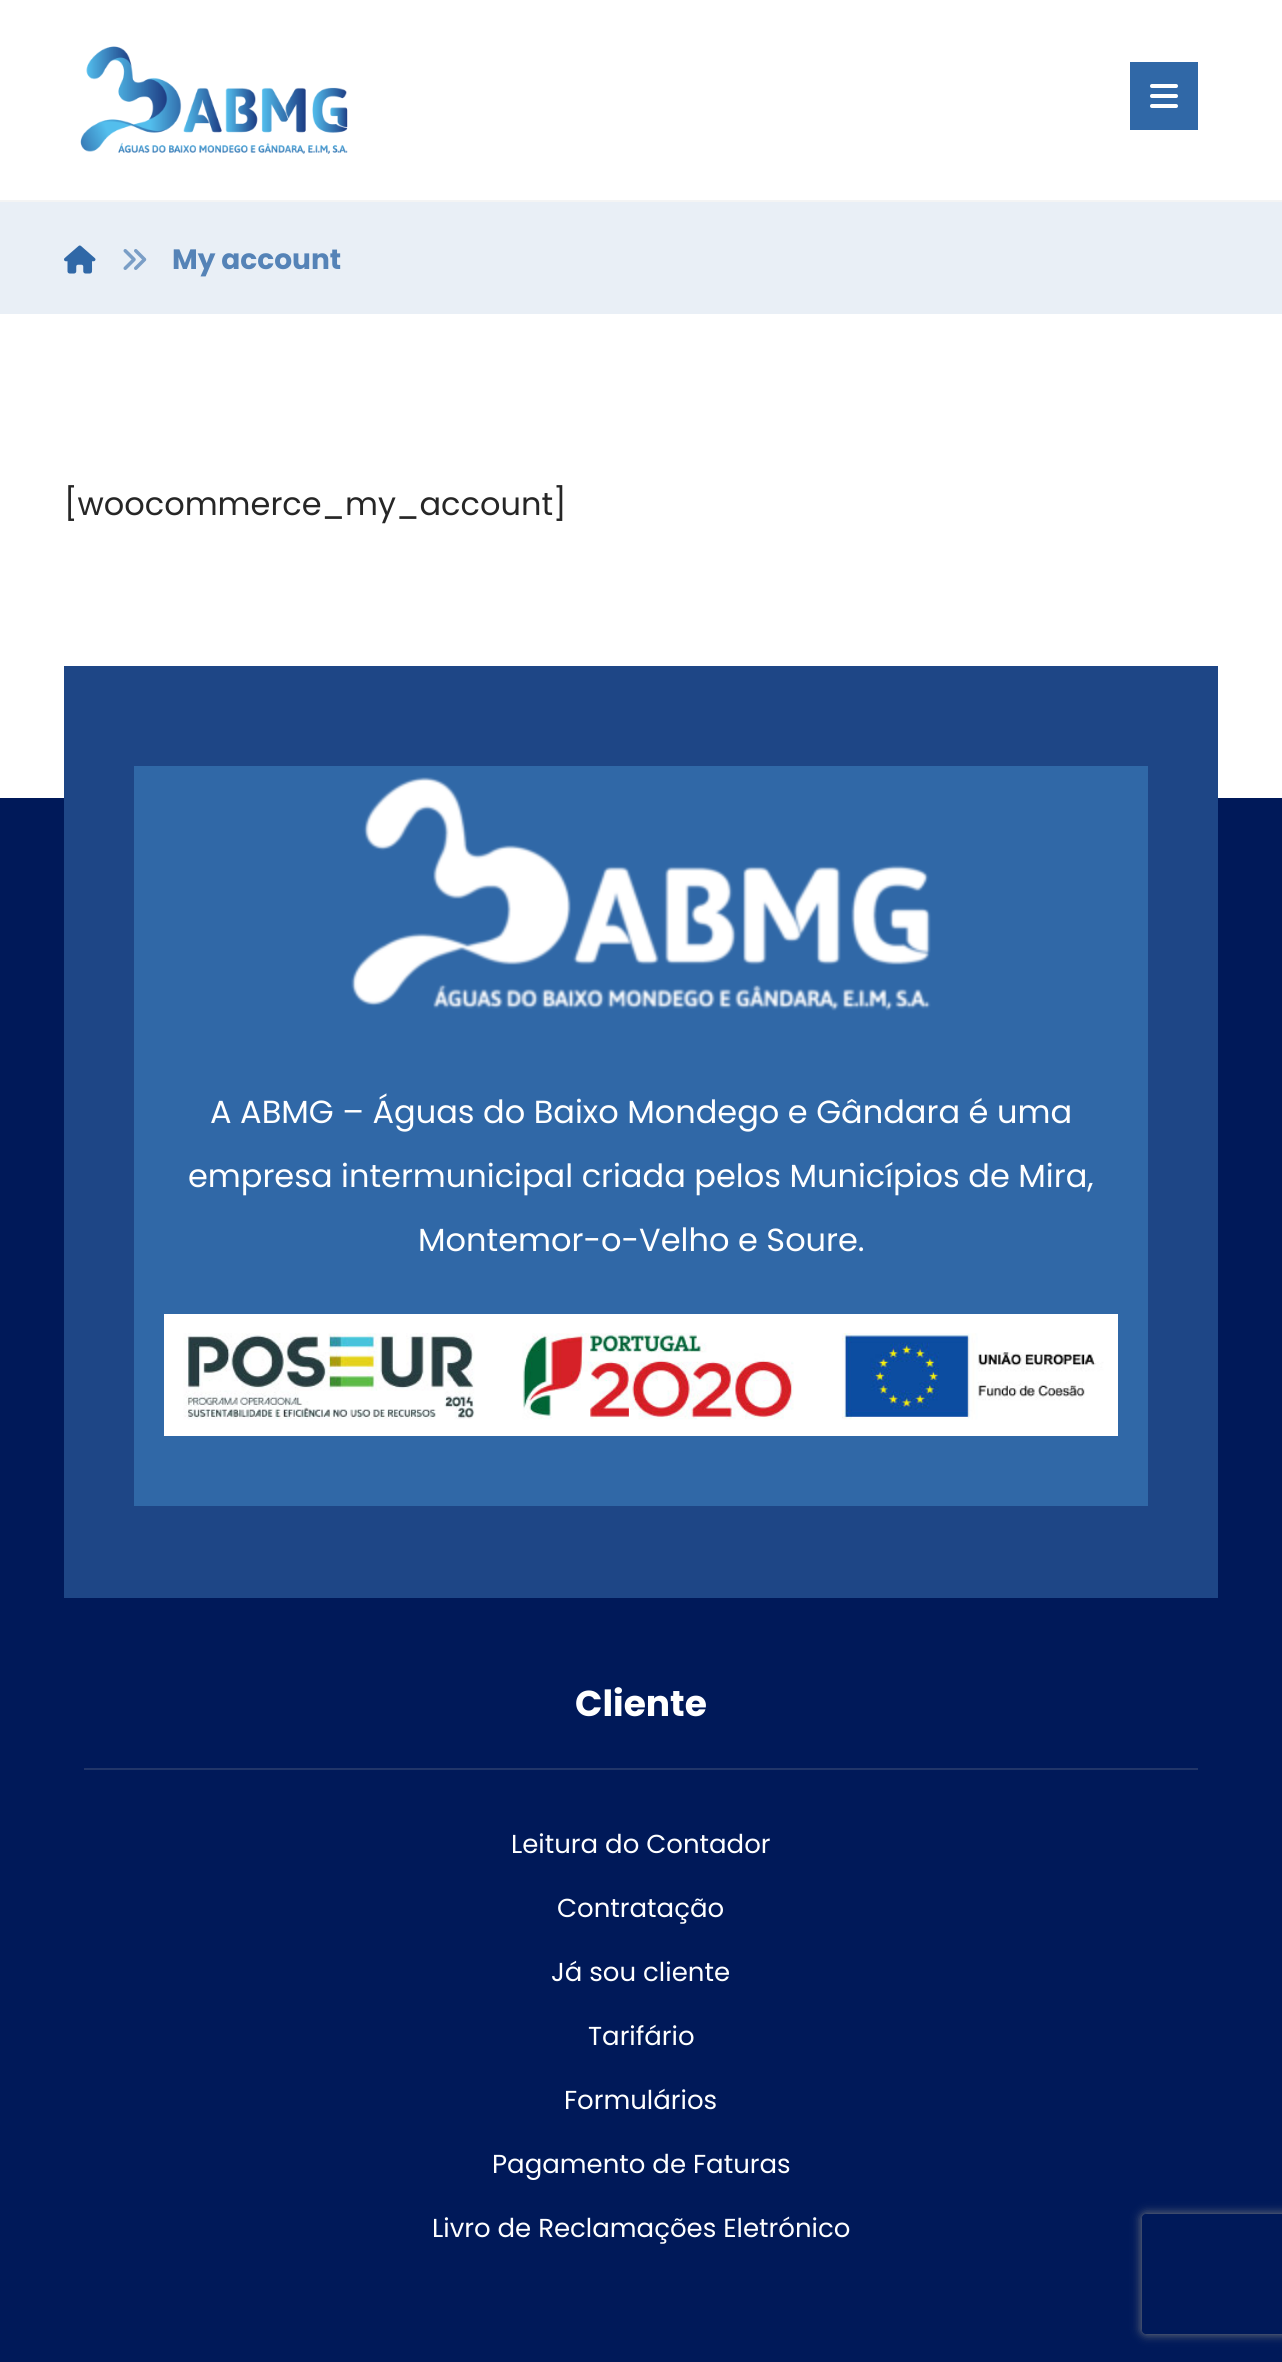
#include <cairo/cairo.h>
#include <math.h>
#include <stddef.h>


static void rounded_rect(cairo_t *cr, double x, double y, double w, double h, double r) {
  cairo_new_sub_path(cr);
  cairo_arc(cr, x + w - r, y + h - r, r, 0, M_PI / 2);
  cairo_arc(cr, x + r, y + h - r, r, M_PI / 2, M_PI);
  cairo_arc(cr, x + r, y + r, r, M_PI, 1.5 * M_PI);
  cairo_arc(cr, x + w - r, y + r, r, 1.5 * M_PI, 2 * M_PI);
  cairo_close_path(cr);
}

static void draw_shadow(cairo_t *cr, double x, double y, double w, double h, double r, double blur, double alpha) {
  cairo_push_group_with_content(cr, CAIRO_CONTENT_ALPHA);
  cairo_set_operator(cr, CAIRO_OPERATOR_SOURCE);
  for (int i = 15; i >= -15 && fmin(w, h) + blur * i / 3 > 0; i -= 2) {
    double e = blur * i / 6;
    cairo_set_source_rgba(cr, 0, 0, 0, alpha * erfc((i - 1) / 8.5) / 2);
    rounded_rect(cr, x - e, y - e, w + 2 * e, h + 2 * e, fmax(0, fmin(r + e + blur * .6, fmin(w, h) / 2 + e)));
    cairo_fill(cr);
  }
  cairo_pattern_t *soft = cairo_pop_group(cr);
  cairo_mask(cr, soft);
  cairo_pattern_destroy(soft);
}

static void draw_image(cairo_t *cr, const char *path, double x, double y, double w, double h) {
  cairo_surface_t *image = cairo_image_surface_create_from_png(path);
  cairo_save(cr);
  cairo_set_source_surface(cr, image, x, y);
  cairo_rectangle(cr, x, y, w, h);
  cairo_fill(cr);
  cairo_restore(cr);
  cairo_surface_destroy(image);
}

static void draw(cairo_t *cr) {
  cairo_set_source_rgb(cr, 1, 1, 1);
  cairo_paint(cr);
  cairo_set_source_rgb(cr, 244 / 255.0, 244 / 255.0, 244 / 255.0);
  cairo_rectangle(cr, 0, 200, 1282, 2);
  cairo_fill(cr);
  draw_image(cr, "images/1.png", 80, 46, 268, 108);
  cairo_set_source_rgb(cr, 48 / 255.0, 104 / 255.0, 167 / 255.0);
  cairo_rectangle(cr, 1130, 62, 68, 68);
  cairo_fill(cr);
  draw_image(cr, "images/2.png", 1150, 84, 28, 24);
  cairo_set_source_rgb(cr, 233 / 255.0, 239 / 255.0, 246 / 255.0);
  cairo_rectangle(cr, 0, 202, 1282, 112);
  cairo_fill(cr);
  draw_image(cr, "images/3.png", 64, 245, 32, 29);
  draw_image(cr, "images/4.png", 123, 249, 24, 21);
  cairo_set_source_rgb(cr, 0, 25 / 255.0, 89 / 255.0);
  cairo_rectangle(cr, 0, 798, 1282, 1564);
  cairo_fill(cr);
  cairo_set_source_rgb(cr, 30 / 255.0, 70 / 255.0, 134 / 255.0);
  cairo_rectangle(cr, 64, 666, 1154, 932);
  cairo_fill(cr);
  cairo_set_source_rgb(cr, 48 / 255.0, 104 / 255.0, 167 / 255.0);
  cairo_rectangle(cr, 134, 766, 1014, 740);
  cairo_fill(cr);
  draw_image(cr, "images/5.png", 351, 777, 580, 234);
  draw_image(cr, "images/6.png", 164, 1314, 954, 122);
  cairo_set_source_rgb(cr, 33 / 255.0, 53 / 255.0, 105 / 255.0);
  cairo_rectangle(cr, 84, 1768, 1114, 2);
  cairo_fill(cr);
  cairo_save(cr);
  cairo_set_fill_rule(cr, CAIRO_FILL_RULE_EVEN_ODD);
  cairo_new_path(cr);
  cairo_move_to(cr, 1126, 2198);
  cairo_line_to(cr, 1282, 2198);
  cairo_line_to(cr, 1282, 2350);
  cairo_line_to(cr, 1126, 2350);
  cairo_close_path(cr);
  cairo_move_to(cr, 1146, 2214);
  cairo_line_to(cr, 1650, 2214);
  cairo_curve_to(cr, 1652, 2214, 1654, 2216, 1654, 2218);
  cairo_line_to(cr, 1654, 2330);
  cairo_curve_to(cr, 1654, 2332, 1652, 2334, 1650, 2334);
  cairo_line_to(cr, 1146, 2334);
  cairo_curve_to(cr, 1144, 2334, 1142, 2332, 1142, 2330);
  cairo_line_to(cr, 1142, 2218);
  cairo_curve_to(cr, 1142, 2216, 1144, 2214, 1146, 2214);
  cairo_close_path(cr);
  cairo_clip(cr);
  cairo_set_source_rgb(cr, 128 / 255.0, 128 / 255.0, 128 / 255.0);
  draw_shadow(cr, 1142, 2214, 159, 120, 4, 5, 1);
  cairo_restore(cr);
  cairo_select_font_face(cr, "Poppins", CAIRO_FONT_SLANT_NORMAL, CAIRO_FONT_WEIGHT_BOLD);
  cairo_set_font_size(cr, 28);
  cairo_set_source_rgb(cr, 85 / 255.0, 131 / 255.0, 183 / 255.0);
  cairo_move_to(cr, 172, 269);
  cairo_show_text(cr, "My account");
  cairo_select_font_face(cr, "Poppins", CAIRO_FONT_SLANT_NORMAL, CAIRO_FONT_WEIGHT_NORMAL);
  cairo_set_font_size(cr, 32);
  cairo_set_source_rgb(cr, 38 / 255.0, 38 / 255.0, 38 / 255.0);
  cairo_move_to(cr, 64, 515);
  cairo_show_text(cr, "[woocommerce_my_account]");
  cairo_set_source_rgb(cr, 1, 1, 1);
  cairo_move_to(cr, 210, 1123);
  cairo_show_text(cr, "A ABMG – Águas do Baixo Mondego e Gândara é uma");
  cairo_move_to(cr, 188, 1187);
  cairo_show_text(cr, "empresa intermunicipal criada pelos Municípios de Mira,");
  cairo_move_to(cr, 418, 1251);
  cairo_show_text(cr, "Montemor-o-Velho e Soure.");
  cairo_select_font_face(cr, "Poppins", CAIRO_FONT_SLANT_NORMAL, CAIRO_FONT_WEIGHT_BOLD);
  cairo_set_font_size(cr, 36);
  cairo_move_to(cr, 575, 1716);
  cairo_show_text(cr, "Cliente");
  cairo_select_font_face(cr, "Poppins", CAIRO_FONT_SLANT_NORMAL, CAIRO_FONT_WEIGHT_NORMAL);
  cairo_set_font_size(cr, 26);
  cairo_move_to(cr, 511, 1853);
  cairo_show_text(cr, "Leitura do Contador");
  cairo_move_to(cr, 557, 1917);
  cairo_show_text(cr, "Contratação");
  cairo_move_to(cr, 551, 1981);
  cairo_show_text(cr, "Já sou cliente");
  cairo_move_to(cr, 588, 2045);
  cairo_show_text(cr, "Tarifário");
  cairo_move_to(cr, 564, 2109);
  cairo_show_text(cr, "Formulários");
  cairo_move_to(cr, 492, 2173);
  cairo_show_text(cr, "Pagamento de Faturas");
  cairo_move_to(cr, 432, 2237);
  cairo_show_text(cr, "Livro de Reclamações Eletrónico");
}

int main(void) {
  cairo_surface_t *surface = cairo_image_surface_create(CAIRO_FORMAT_RGB24, 1282, 2362);
  cairo_t *cr = cairo_create(surface);
  cairo_font_options_t *options = cairo_font_options_create();
  cairo_font_options_set_hint_metrics(options, CAIRO_HINT_METRICS_OFF);
  cairo_font_options_set_hint_style(options, CAIRO_HINT_STYLE_NONE);
  cairo_set_font_options(cr, options);
  cairo_set_miter_limit(cr, 4);
  draw(cr);
  cairo_surface_write_to_png(surface, "out.png");
  cairo_font_options_destroy(options);
  cairo_destroy(cr);
  cairo_surface_destroy(surface);
  return 0;
}
